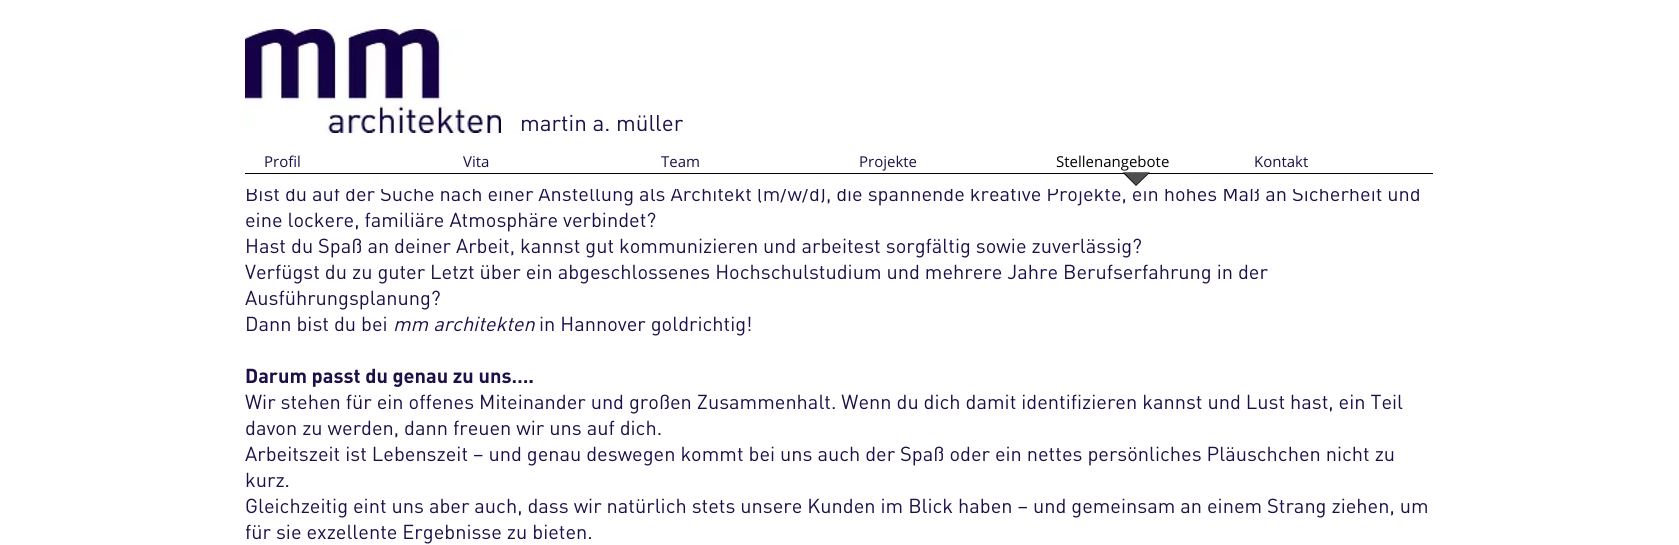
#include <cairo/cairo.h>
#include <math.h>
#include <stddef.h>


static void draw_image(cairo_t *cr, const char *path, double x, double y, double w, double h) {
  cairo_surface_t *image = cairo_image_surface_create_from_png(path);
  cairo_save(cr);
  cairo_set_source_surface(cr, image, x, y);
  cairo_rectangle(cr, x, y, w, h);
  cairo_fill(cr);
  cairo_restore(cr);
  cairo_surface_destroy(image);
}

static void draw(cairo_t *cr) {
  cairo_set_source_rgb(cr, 1, 1, 1);
  cairo_paint(cr);
  draw_image(cr, "images/1.png", 245, 29, 256, 104);
  cairo_set_source_rgb(cr, 0, 0, 0);
  cairo_rectangle(cr, 245, 173, 1188, 1);
  cairo_fill(cr);
  cairo_select_font_face(cr, "DIN", CAIRO_FONT_SLANT_NORMAL, CAIRO_FONT_WEIGHT_NORMAL);
  cairo_set_font_size(cr, 22.5);
  cairo_set_source_rgb(cr, 30 / 255.0, 15 / 255.0, 72 / 255.0);
  cairo_move_to(cr, 520, 131);
  cairo_show_text(cr, "martin a. müller");
  cairo_select_font_face(cr, "Open Sans", CAIRO_FONT_SLANT_NORMAL, CAIRO_FONT_WEIGHT_NORMAL);
  cairo_set_font_size(cr, 15);
  cairo_move_to(cr, 264, 167);
  cairo_show_text(cr, "Profil");
  cairo_move_to(cr, 463, 167);
  cairo_show_text(cr, "Vita");
  cairo_move_to(cr, 661, 167);
  cairo_show_text(cr, "Team");
  cairo_move_to(cr, 859, 167);
  cairo_show_text(cr, "Projekte");
  cairo_set_source_rgb(cr, 0, 0, 0);
  cairo_move_to(cr, 1056, 167);
  cairo_show_text(cr, "Stellenangebote");
  cairo_set_source_rgb(cr, 30 / 255.0, 15 / 255.0, 72 / 255.0);
  cairo_move_to(cr, 1254, 167);
  cairo_show_text(cr, "Kontakt");
  cairo_select_font_face(cr, "DIN", CAIRO_FONT_SLANT_NORMAL, CAIRO_FONT_WEIGHT_NORMAL);
  cairo_set_font_size(cr, 20);
  cairo_move_to(cr, 245, 201);
  cairo_show_text(cr, "Bist du auf der Suche nach einer Anstellung als Architekt (m/w/d), die spannende kreative Projekte, ein hohes Maß an Sicherheit und");
  cairo_set_source_rgb(cr, 1, 1, 1);
  cairo_rectangle(cr, 247, 184, 1172, 5);
  cairo_fill(cr);
  cairo_set_source_rgb(cr, 0, 0, 0);
  cairo_new_path(cr);
  cairo_move_to(cr, 1122.5, 172.5);
  cairo_line_to(cr, 1150, 172.5);
  cairo_line_to(cr, 1136, 186);
  cairo_close_path(cr);
  cairo_fill(cr);
  cairo_set_source_rgb(cr, 79 / 255.0, 79 / 255.0, 79 / 255.0);
  cairo_new_path(cr);
  cairo_move_to(cr, 1124, 172.5);
  cairo_line_to(cr, 1149, 172.5);
  cairo_line_to(cr, 1136, 185);
  cairo_close_path(cr);
  cairo_fill(cr);
  cairo_set_source_rgb(cr, 30 / 255.0, 15 / 255.0, 72 / 255.0);
  cairo_move_to(cr, 245, 227);
  cairo_show_text(cr, "eine lockere, familiäre Atmosphäre verbindet?");
  cairo_move_to(cr, 245, 253);
  cairo_show_text(cr, "Hast du Spaß an deiner Arbeit, kannst gut kommunizieren und arbeitest sorgfältig sowie zuverlässig?");
  cairo_move_to(cr, 245, 279);
  cairo_show_text(cr, "Verfügst du zu guter Letzt über ein abgeschlossenes Hochschulstudium und mehrere Jahre Berufserfahrung in der");
  cairo_move_to(cr, 245, 305);
  cairo_show_text(cr, "Ausführungsplanung?");
  cairo_move_to(cr, 245, 331);
  cairo_show_text(cr, "Dann bist du bei");
  cairo_select_font_face(cr, "DIN", CAIRO_FONT_SLANT_ITALIC, CAIRO_FONT_WEIGHT_NORMAL);
  cairo_move_to(cr, 393, 331);
  cairo_show_text(cr, "mm architekten");
  cairo_select_font_face(cr, "DIN", CAIRO_FONT_SLANT_NORMAL, CAIRO_FONT_WEIGHT_NORMAL);
  cairo_move_to(cr, 539, 331);
  cairo_show_text(cr, "in Hannover goldrichtig!");
  cairo_select_font_face(cr, "DIN", CAIRO_FONT_SLANT_NORMAL, CAIRO_FONT_WEIGHT_BOLD);
  cairo_move_to(cr, 245, 383);
  cairo_show_text(cr, "Darum passt du genau zu uns….");
  cairo_select_font_face(cr, "DIN", CAIRO_FONT_SLANT_NORMAL, CAIRO_FONT_WEIGHT_NORMAL);
  cairo_move_to(cr, 245, 409);
  cairo_show_text(cr, "Wir stehen für ein offenes Miteinander und großen Zusammenhalt. Wenn du dich damit identifizieren kannst und Lust hast, ein Teil");
  cairo_move_to(cr, 245, 435);
  cairo_show_text(cr, "davon zu werden, dann freuen wir uns auf dich.");
  cairo_move_to(cr, 245, 461);
  cairo_show_text(cr, "Arbeitszeit ist Lebenszeit – und genau deswegen kommt bei uns auch der Spaß oder ein nettes persönliches Pläuschchen nicht zu");
  cairo_move_to(cr, 245, 487);
  cairo_show_text(cr, "kurz.");
  cairo_move_to(cr, 245, 513);
  cairo_show_text(cr, "Gleichzeitig eint uns aber auch, dass wir natürlich stets unsere Kunden im Blick haben – und gemeinsam an einem Strang ziehen, um");
  cairo_move_to(cr, 245, 539);
  cairo_show_text(cr, "für sie exzellente Ergebnisse zu bieten.");
}

int main(void) {
  cairo_surface_t *surface = cairo_image_surface_create(CAIRO_FORMAT_RGB24, 1679, 545);
  cairo_t *cr = cairo_create(surface);
  cairo_font_options_t *options = cairo_font_options_create();
  cairo_font_options_set_hint_metrics(options, CAIRO_HINT_METRICS_OFF);
  cairo_font_options_set_hint_style(options, CAIRO_HINT_STYLE_NONE);
  cairo_set_font_options(cr, options);
  cairo_set_miter_limit(cr, 4);
  draw(cr);
  cairo_surface_write_to_png(surface, "out.png");
  cairo_font_options_destroy(options);
  cairo_destroy(cr);
  cairo_surface_destroy(surface);
  return 0;
}
